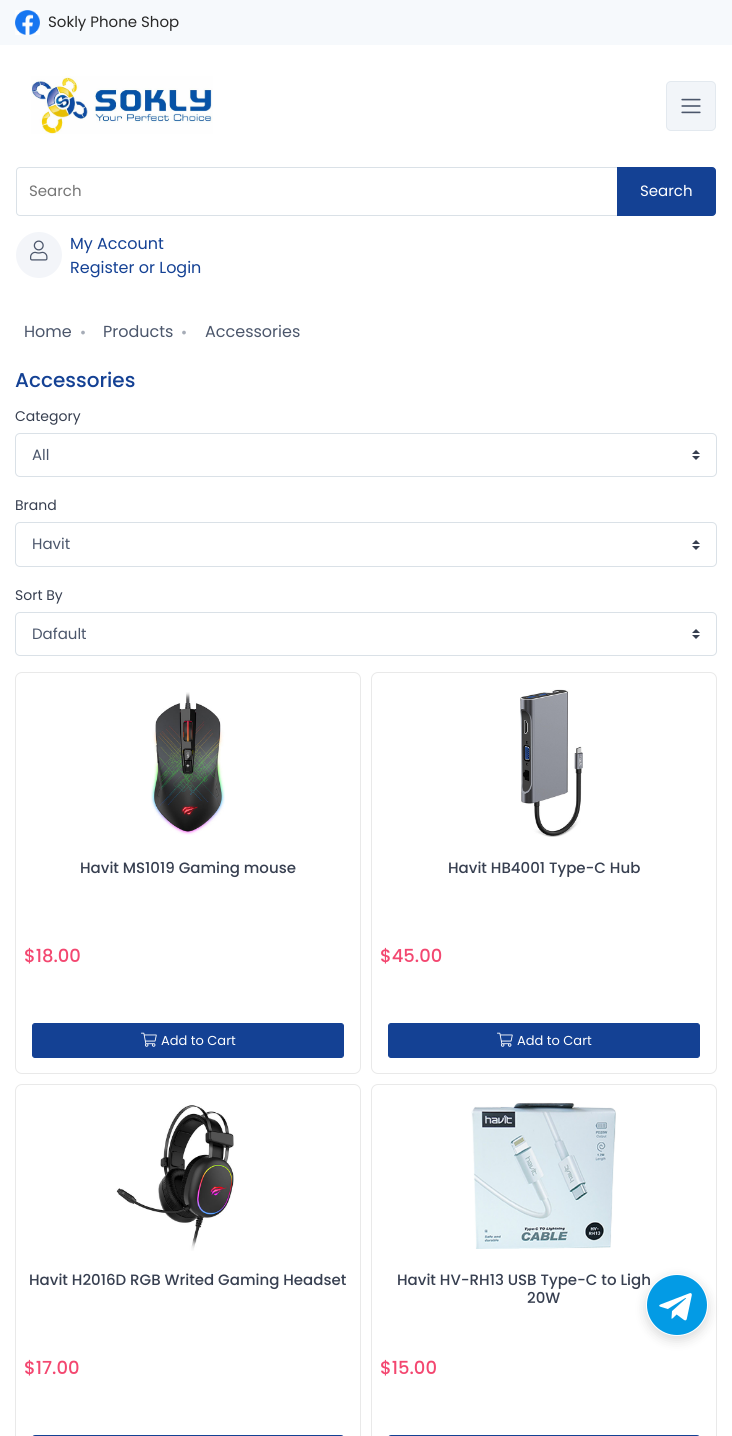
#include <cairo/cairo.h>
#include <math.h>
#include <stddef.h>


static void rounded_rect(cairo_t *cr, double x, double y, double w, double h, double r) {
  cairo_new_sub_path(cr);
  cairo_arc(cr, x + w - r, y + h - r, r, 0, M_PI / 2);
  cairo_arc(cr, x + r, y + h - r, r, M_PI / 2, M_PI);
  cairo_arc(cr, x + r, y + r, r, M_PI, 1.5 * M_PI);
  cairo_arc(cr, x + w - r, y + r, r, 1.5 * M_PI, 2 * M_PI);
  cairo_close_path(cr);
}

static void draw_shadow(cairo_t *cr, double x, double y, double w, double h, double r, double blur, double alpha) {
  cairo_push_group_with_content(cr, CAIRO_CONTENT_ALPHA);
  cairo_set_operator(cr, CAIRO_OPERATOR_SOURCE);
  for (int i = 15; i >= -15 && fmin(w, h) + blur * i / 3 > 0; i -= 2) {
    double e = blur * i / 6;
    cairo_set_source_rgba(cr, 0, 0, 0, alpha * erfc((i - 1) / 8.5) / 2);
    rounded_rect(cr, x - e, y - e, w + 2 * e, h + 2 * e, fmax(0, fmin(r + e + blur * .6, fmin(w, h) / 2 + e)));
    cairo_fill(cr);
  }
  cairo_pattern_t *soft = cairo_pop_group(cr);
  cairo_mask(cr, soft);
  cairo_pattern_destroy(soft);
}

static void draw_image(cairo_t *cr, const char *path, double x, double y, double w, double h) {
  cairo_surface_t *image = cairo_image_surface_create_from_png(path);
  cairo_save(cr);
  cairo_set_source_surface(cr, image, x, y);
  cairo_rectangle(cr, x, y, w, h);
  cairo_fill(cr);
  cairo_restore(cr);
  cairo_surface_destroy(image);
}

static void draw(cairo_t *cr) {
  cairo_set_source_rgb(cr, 1, 1, 1);
  cairo_paint(cr);
  cairo_set_source_rgb(cr, 246 / 255.0, 249 / 255.0, 252 / 255.0);
  cairo_rectangle(cr, 0, 0, 732, 45);
  cairo_fill(cr);
  draw_image(cr, "images/1.png", 15, 10, 25, 25);
  draw_image(cr, "images/2.png", 31, 76, 182, 58);
  cairo_set_source_rgb(cr, 242 / 255.0, 245 / 255.0, 249 / 255.0);
  rounded_rect(cr, 666.5, 81.5, 49, 49, 4.5);
  cairo_fill_preserve(cr);
  cairo_set_source_rgb(cr, 227 / 255.0, 233 / 255.0, 239 / 255.0);
  cairo_set_line_width(cr, 1);
  cairo_stroke(cr);
  draw_image(cr, "images/3.png", 681, 98, 20, 16);
  cairo_new_path(cr);
  cairo_move_to(cr, 20, 167.5);
  cairo_line_to(cr, 617.5, 167.5);
  cairo_line_to(cr, 617.5, 215.5);
  cairo_line_to(cr, 20, 215.5);
  cairo_curve_to(cr, 18, 215.5, 16.5, 214, 16.5, 212);
  cairo_line_to(cr, 16.5, 171);
  cairo_curve_to(cr, 16.5, 169, 18, 167.5, 20, 167.5);
  cairo_close_path(cr);
  cairo_set_source_rgb(cr, 218 / 255.0, 225 / 255.0, 231 / 255.0);
  cairo_stroke(cr);
  cairo_set_source_rgb(cr, 20 / 255.0, 65 / 255.0, 148 / 255.0);
  cairo_new_path(cr);
  cairo_move_to(cr, 617.5, 167.5);
  cairo_line_to(cr, 712, 167.5);
  cairo_curve_to(cr, 714, 167.5, 715.5, 169, 715.5, 171);
  cairo_line_to(cr, 715.5, 212);
  cairo_curve_to(cr, 715.5, 214, 714, 215.5, 712, 215.5);
  cairo_line_to(cr, 617.5, 215.5);
  cairo_close_path(cr);
  cairo_fill_preserve(cr);
  cairo_stroke(cr);
  cairo_set_source_rgb(cr, 243 / 255.0, 245 / 255.0, 249 / 255.0);
  cairo_arc(cr, 39, 255, 23, 0, 2 * M_PI);
  cairo_fill(cr);
  draw_image(cr, "images/4.png", 30, 240, 18, 21);
  draw_image(cr, "images/5.png", 692, 450, 8, 10);
  rounded_rect(cr, 15.5, 433.5, 701, 43, 4.5);
  cairo_set_source_rgb(cr, 218 / 255.0, 225 / 255.0, 231 / 255.0);
  cairo_stroke(cr);
  draw_image(cr, "images/5.png", 692, 540, 8, 10);
  rounded_rect(cr, 15.5, 522.5, 701, 44, 4.5);
  cairo_stroke(cr);
  draw_image(cr, "images/5.png", 692, 629, 8, 10);
  rounded_rect(cr, 15.5, 612.5, 701, 43, 4.5);
  cairo_stroke(cr);
  rounded_rect(cr, 15.5, 672.5, 345, 401, 6.5);
  cairo_set_source_rgb(cr, 233 / 255.0, 233 / 255.0, 233 / 255.0);
  cairo_stroke(cr);
  draw_image(cr, "images/6.png", 151, 692, 74, 143);
  cairo_set_source_rgb(cr, 20 / 255.0, 65 / 255.0, 148 / 255.0);
  rounded_rect(cr, 32.5, 1023.5, 311, 34, 2.5);
  cairo_fill_preserve(cr);
  cairo_stroke(cr);
  draw_image(cr, "images/7.png", 141, 1032, 16, 15);
  rounded_rect(cr, 371.5, 672.5, 345, 401, 6.5);
  cairo_set_source_rgb(cr, 233 / 255.0, 233 / 255.0, 233 / 255.0);
  cairo_stroke(cr);
  draw_image(cr, "images/8.png", 520, 689, 63, 148);
  cairo_set_source_rgb(cr, 20 / 255.0, 65 / 255.0, 148 / 255.0);
  rounded_rect(cr, 388.5, 1023.5, 311, 34, 2.5);
  cairo_fill_preserve(cr);
  cairo_stroke(cr);
  draw_image(cr, "images/7.png", 497, 1032, 16, 15);
  rounded_rect(cr, 15.5, 1084.5, 345, 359, 6.5);
  cairo_set_source_rgb(cr, 233 / 255.0, 233 / 255.0, 233 / 255.0);
  cairo_stroke(cr);
  draw_image(cr, "images/9.png", 116, 1105, 118, 146);
  rounded_rect(cr, 32.5, 1435.5, 311, 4, 2.5);
  cairo_set_source_rgb(cr, 20 / 255.0, 65 / 255.0, 148 / 255.0);
  cairo_stroke(cr);
  rounded_rect(cr, 371.5, 1084.5, 345, 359, 6.5);
  cairo_set_source_rgb(cr, 233 / 255.0, 233 / 255.0, 233 / 255.0);
  cairo_stroke(cr);
  draw_image(cr, "images/10.png", 471, 1102, 145, 147);
  rounded_rect(cr, 388.5, 1435.5, 311, 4, 2.5);
  cairo_set_source_rgb(cr, 20 / 255.0, 65 / 255.0, 148 / 255.0);
  cairo_stroke(cr);
  cairo_set_source_rgb(cr, 0, 0, 0);
  draw_shadow(cr, 646, 1278, 62, 62, 31, 6, 0.15);
  cairo_select_font_face(cr, "Poppins", CAIRO_FONT_SLANT_NORMAL, CAIRO_FONT_WEIGHT_NORMAL);
  cairo_set_font_size(cr, 15);
  cairo_set_source_rgb(cr, 40 / 255.0, 40 / 255.0, 40 / 255.0);
  cairo_move_to(cr, 48, 27);
  cairo_show_text(cr, "Sokly Phone Shop");
  cairo_set_source_rgb(cr, 117 / 255.0, 117 / 255.0, 117 / 255.0);
  cairo_move_to(cr, 29, 196);
  cairo_show_text(cr, "Search");
  cairo_set_source_rgb(cr, 1, 1, 1);
  cairo_move_to(cr, 640, 196);
  cairo_show_text(cr, "Search");
  cairo_set_font_size(cr, 16);
  cairo_set_source_rgb(cr, 20 / 255.0, 65 / 255.0, 148 / 255.0);
  cairo_move_to(cr, 70, 249);
  cairo_show_text(cr, "My Account");
  cairo_move_to(cr, 70, 273);
  cairo_show_text(cr, "Register or Login");
  cairo_set_source_rgb(cr, 75 / 255.0, 86 / 255.0, 107 / 255.0);
  cairo_move_to(cr, 24, 337);
  cairo_show_text(cr, "Home");
  cairo_select_font_face(cr, "Liberation Serif", CAIRO_FONT_SLANT_NORMAL, CAIRO_FONT_WEIGHT_NORMAL);
  cairo_set_font_size(cr, 32);
  cairo_set_source_rgb(cr, 166 / 255.0, 172 / 255.0, 183 / 255.0);
  cairo_move_to(cr, 79, 334);
  cairo_show_text(cr, ".");
  cairo_select_font_face(cr, "Poppins", CAIRO_FONT_SLANT_NORMAL, CAIRO_FONT_WEIGHT_NORMAL);
  cairo_set_font_size(cr, 16);
  cairo_set_source_rgb(cr, 75 / 255.0, 86 / 255.0, 107 / 255.0);
  cairo_move_to(cr, 103, 337);
  cairo_show_text(cr, "Products");
  cairo_select_font_face(cr, "Liberation Serif", CAIRO_FONT_SLANT_NORMAL, CAIRO_FONT_WEIGHT_NORMAL);
  cairo_set_font_size(cr, 32);
  cairo_set_source_rgb(cr, 166 / 255.0, 172 / 255.0, 183 / 255.0);
  cairo_move_to(cr, 180, 334);
  cairo_show_text(cr, ".");
  cairo_select_font_face(cr, "Poppins", CAIRO_FONT_SLANT_NORMAL, CAIRO_FONT_WEIGHT_NORMAL);
  cairo_set_font_size(cr, 16);
  cairo_set_source_rgb(cr, 75 / 255.0, 86 / 255.0, 107 / 255.0);
  cairo_move_to(cr, 205, 337);
  cairo_show_text(cr, "Accessories");
  cairo_select_font_face(cr, "Poppins Medium", CAIRO_FONT_SLANT_NORMAL, CAIRO_FONT_WEIGHT_NORMAL);
  cairo_set_font_size(cr, 20);
  cairo_set_source_rgb(cr, 20 / 255.0, 65 / 255.0, 148 / 255.0);
  cairo_move_to(cr, 15, 387);
  cairo_show_text(cr, "Accessories");
  cairo_select_font_face(cr, "Poppins", CAIRO_FONT_SLANT_NORMAL, CAIRO_FONT_WEIGHT_NORMAL);
  cairo_set_font_size(cr, 14);
  cairo_set_source_rgb(cr, 55 / 255.0, 63 / 255.0, 80 / 255.0);
  cairo_move_to(cr, 15, 421);
  cairo_show_text(cr, "Category");
  cairo_set_font_size(cr, 15);
  cairo_set_source_rgb(cr, 75 / 255.0, 86 / 255.0, 107 / 255.0);
  cairo_move_to(cr, 32, 460);
  cairo_show_text(cr, "All");
  cairo_set_font_size(cr, 14);
  cairo_set_source_rgb(cr, 55 / 255.0, 63 / 255.0, 80 / 255.0);
  cairo_move_to(cr, 15, 510);
  cairo_show_text(cr, "Brand");
  cairo_set_font_size(cr, 15);
  cairo_set_source_rgb(cr, 75 / 255.0, 86 / 255.0, 107 / 255.0);
  cairo_move_to(cr, 32, 549);
  cairo_show_text(cr, "Havit");
  cairo_set_font_size(cr, 14);
  cairo_set_source_rgb(cr, 55 / 255.0, 63 / 255.0, 80 / 255.0);
  cairo_move_to(cr, 15, 600);
  cairo_show_text(cr, "Sort By");
  cairo_set_font_size(cr, 15);
  cairo_set_source_rgb(cr, 75 / 255.0, 86 / 255.0, 107 / 255.0);
  cairo_move_to(cr, 32, 639);
  cairo_show_text(cr, "Dafault");
  cairo_select_font_face(cr, "Poppins Medium", CAIRO_FONT_SLANT_NORMAL, CAIRO_FONT_WEIGHT_NORMAL);
  cairo_set_source_rgb(cr, 55 / 255.0, 63 / 255.0, 80 / 255.0);
  cairo_move_to(cr, 80, 873);
  cairo_show_text(cr, "Havit MS1019 Gaming mouse");
  cairo_set_font_size(cr, 18);
  cairo_set_source_rgb(cr, 243 / 255.0, 71 / 255.0, 112 / 255.0);
  cairo_move_to(cr, 24, 962);
  cairo_show_text(cr, "$18.00");
  cairo_select_font_face(cr, "Poppins", CAIRO_FONT_SLANT_NORMAL, CAIRO_FONT_WEIGHT_NORMAL);
  cairo_set_font_size(cr, 13);
  cairo_set_source_rgb(cr, 1, 1, 1);
  cairo_move_to(cr, 161, 1045);
  cairo_show_text(cr, "Add to Cart");
  cairo_select_font_face(cr, "Poppins Medium", CAIRO_FONT_SLANT_NORMAL, CAIRO_FONT_WEIGHT_NORMAL);
  cairo_set_font_size(cr, 15);
  cairo_set_source_rgb(cr, 55 / 255.0, 63 / 255.0, 80 / 255.0);
  cairo_move_to(cr, 448, 873);
  cairo_show_text(cr, "Havit HB4001 Type-C Hub");
  cairo_set_font_size(cr, 18);
  cairo_set_source_rgb(cr, 243 / 255.0, 71 / 255.0, 112 / 255.0);
  cairo_move_to(cr, 380, 962);
  cairo_show_text(cr, "$45.00");
  cairo_select_font_face(cr, "Poppins", CAIRO_FONT_SLANT_NORMAL, CAIRO_FONT_WEIGHT_NORMAL);
  cairo_set_font_size(cr, 13);
  cairo_set_source_rgb(cr, 1, 1, 1);
  cairo_move_to(cr, 517, 1045);
  cairo_show_text(cr, "Add to Cart");
  cairo_select_font_face(cr, "Poppins Medium", CAIRO_FONT_SLANT_NORMAL, CAIRO_FONT_WEIGHT_NORMAL);
  cairo_set_font_size(cr, 15);
  cairo_set_source_rgb(cr, 55 / 255.0, 63 / 255.0, 80 / 255.0);
  cairo_move_to(cr, 29, 1285);
  cairo_show_text(cr, "Havit H2016D RGB Writed Gaming Headset");
  cairo_set_font_size(cr, 18);
  cairo_set_source_rgb(cr, 243 / 255.0, 71 / 255.0, 112 / 255.0);
  cairo_move_to(cr, 24, 1374);
  cairo_show_text(cr, "$17.00");
  cairo_set_font_size(cr, 15);
  cairo_set_source_rgb(cr, 55 / 255.0, 63 / 255.0, 80 / 255.0);
  cairo_move_to(cr, 397, 1285);
  cairo_show_text(cr, "Havit HV-RH13 USB Type-C to Ligh");
  cairo_move_to(cr, 527, 1303);
  cairo_show_text(cr, "20W");
  cairo_set_font_size(cr, 18);
  cairo_set_source_rgb(cr, 243 / 255.0, 71 / 255.0, 112 / 255.0);
  cairo_move_to(cr, 380, 1374);
  cairo_show_text(cr, "$15.00");
  cairo_set_source_rgb(cr, 1, 1, 1);
  cairo_new_path(cr);
  cairo_arc(cr, 677, 1305, 31, 0, 2 * M_PI);
  cairo_fill(cr);
  draw_image(cr, "images/11.png", 647, 1275, 60, 60);
}

int main(void) {
  cairo_surface_t *surface = cairo_image_surface_create(CAIRO_FORMAT_RGB24, 732, 1436);
  cairo_t *cr = cairo_create(surface);
  cairo_font_options_t *options = cairo_font_options_create();
  cairo_font_options_set_hint_metrics(options, CAIRO_HINT_METRICS_OFF);
  cairo_font_options_set_hint_style(options, CAIRO_HINT_STYLE_NONE);
  cairo_set_font_options(cr, options);
  cairo_set_miter_limit(cr, 4);
  draw(cr);
  cairo_surface_write_to_png(surface, "out.png");
  cairo_font_options_destroy(options);
  cairo_destroy(cr);
  cairo_surface_destroy(surface);
  return 0;
}
